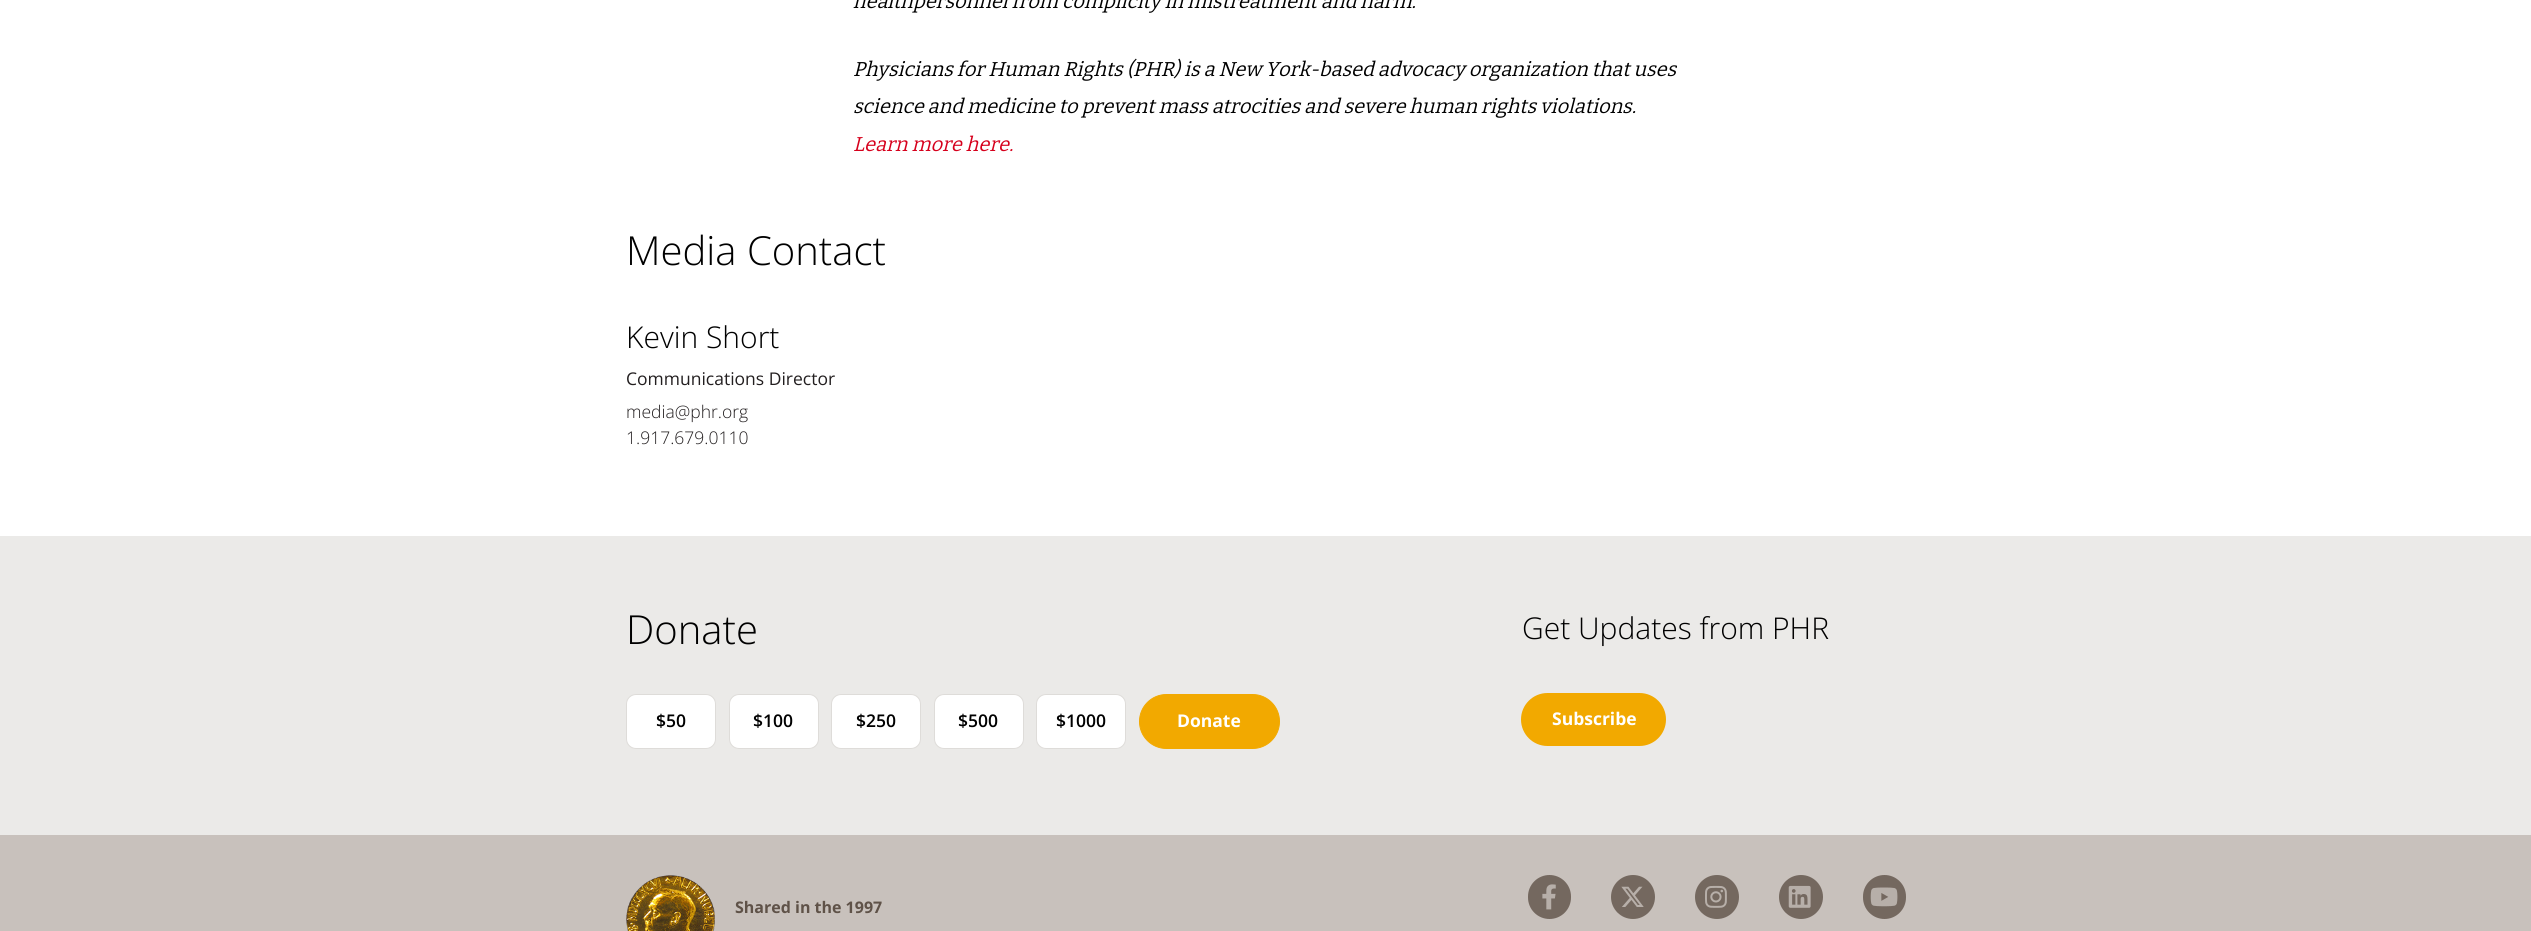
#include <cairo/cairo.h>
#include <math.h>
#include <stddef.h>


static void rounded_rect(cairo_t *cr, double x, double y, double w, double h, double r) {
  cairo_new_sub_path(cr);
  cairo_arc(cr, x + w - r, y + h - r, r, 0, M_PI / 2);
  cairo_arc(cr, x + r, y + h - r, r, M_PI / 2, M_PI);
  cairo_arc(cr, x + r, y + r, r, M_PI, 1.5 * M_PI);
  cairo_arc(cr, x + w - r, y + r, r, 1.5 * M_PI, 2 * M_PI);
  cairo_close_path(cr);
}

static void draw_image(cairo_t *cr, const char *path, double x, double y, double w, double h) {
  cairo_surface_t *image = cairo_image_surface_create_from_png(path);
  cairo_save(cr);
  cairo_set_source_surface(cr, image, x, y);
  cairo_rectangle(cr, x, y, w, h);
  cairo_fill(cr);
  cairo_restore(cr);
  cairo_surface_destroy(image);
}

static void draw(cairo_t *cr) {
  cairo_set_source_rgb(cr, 1, 1, 1);
  cairo_paint(cr);
  cairo_set_source_rgb(cr, 235 / 255.0, 234 / 255.0, 232 / 255.0);
  cairo_rectangle(cr, 0, 536, 2531, 299);
  cairo_fill(cr);
  cairo_set_source_rgb(cr, 1, 1, 1);
  rounded_rect(cr, 626.5, 694.5, 89, 54, 9.5);
  cairo_fill_preserve(cr);
  cairo_set_source_rgb(cr, 222 / 255.0, 220 / 255.0, 217 / 255.0);
  cairo_set_line_width(cr, 1);
  cairo_stroke(cr);
  cairo_set_source_rgb(cr, 1, 1, 1);
  rounded_rect(cr, 729.5, 694.5, 89, 54, 9.5);
  cairo_fill_preserve(cr);
  cairo_set_source_rgb(cr, 222 / 255.0, 220 / 255.0, 217 / 255.0);
  cairo_stroke(cr);
  cairo_set_source_rgb(cr, 1, 1, 1);
  rounded_rect(cr, 831.5, 694.5, 89, 54, 9.5);
  cairo_fill_preserve(cr);
  cairo_set_source_rgb(cr, 222 / 255.0, 220 / 255.0, 217 / 255.0);
  cairo_stroke(cr);
  cairo_set_source_rgb(cr, 1, 1, 1);
  rounded_rect(cr, 934.5, 694.5, 89, 54, 9.5);
  cairo_fill_preserve(cr);
  cairo_set_source_rgb(cr, 222 / 255.0, 220 / 255.0, 217 / 255.0);
  cairo_stroke(cr);
  cairo_set_source_rgb(cr, 1, 1, 1);
  rounded_rect(cr, 1036.5, 694.5, 89, 54, 9.5);
  cairo_fill_preserve(cr);
  cairo_set_source_rgb(cr, 222 / 255.0, 220 / 255.0, 217 / 255.0);
  cairo_stroke(cr);
  cairo_set_source_rgb(cr, 242 / 255.0, 169 / 255.0, 0);
  rounded_rect(cr, 1139.5, 694.5, 140, 54, 27);
  cairo_fill_preserve(cr);
  cairo_stroke(cr);
  rounded_rect(cr, 1521, 693, 145, 53, 26.5);
  cairo_fill(cr);
  cairo_set_source_rgb(cr, 200 / 255.0, 193 / 255.0, 188 / 255.0);
  cairo_rectangle(cr, 0, 835, 2531, 96);
  cairo_fill(cr);
  draw_image(cr, "images/1.png", 626, 875, 89, 56);
  cairo_set_source_rgb(cr, 116 / 255.0, 104 / 255.0, 95 / 255.0);
  rounded_rect(cr, 1528, 875, 43, 44, 21.5);
  cairo_fill(cr);
  draw_image(cr, "images/2.png", 1542, 884, 14, 26);
  cairo_arc(cr, 1633, 897, 22, 0, 2 * M_PI);
  cairo_fill(cr);
  draw_image(cr, "images/3.png", 1621, 886, 23, 21);
  cairo_arc(cr, 1717, 897, 22, 0, 2 * M_PI);
  cairo_fill(cr);
  draw_image(cr, "images/4.png", 1705, 885, 22, 23);
  cairo_arc(cr, 1801, 897, 22, 0, 2 * M_PI);
  cairo_fill(cr);
  draw_image(cr, "images/5.png", 1788, 885, 23, 23);
  rounded_rect(cr, 1863, 875, 43, 44, 21.5);
  cairo_fill(cr);
  draw_image(cr, "images/6.png", 1870, 887, 28, 20);
  cairo_select_font_face(cr, "Bitter", CAIRO_FONT_SLANT_ITALIC, CAIRO_FONT_WEIGHT_NORMAL);
  cairo_set_font_size(cr, 20);
  cairo_set_source_rgb(cr, 0, 0, 0);
  cairo_move_to(cr, 853, 8);
  cairo_show_text(cr, "healthpersonnel from complicity in mistreatment and harm.");
  cairo_move_to(cr, 853, 76);
  cairo_show_text(cr, "Physicians for Human Rights (PHR) is a New York-based advocacy organization that uses");
  cairo_move_to(cr, 853, 113);
  cairo_show_text(cr, "science and medicine to prevent mass atrocities and severe human rights violations.");
  cairo_set_source_rgb(cr, 214 / 255.0, 0, 28 / 255.0);
  cairo_move_to(cr, 853, 151);
  cairo_show_text(cr, "Learn more here.");
  cairo_select_font_face(cr, "Open Sans Light", CAIRO_FONT_SLANT_NORMAL, CAIRO_FONT_WEIGHT_NORMAL);
  cairo_set_font_size(cr, 40);
  cairo_set_source_rgb(cr, 0, 0, 0);
  cairo_move_to(cr, 626, 265);
  cairo_show_text(cr, "Media Contact");
  cairo_set_font_size(cr, 30);
  cairo_move_to(cr, 626, 348);
  cairo_show_text(cr, "Kevin Short");
  cairo_select_font_face(cr, "Open Sans", CAIRO_FONT_SLANT_NORMAL, CAIRO_FONT_WEIGHT_NORMAL);
  cairo_set_font_size(cr, 17.5);
  cairo_set_source_rgb(cr, 35 / 255.0, 31 / 255.0, 32 / 255.0);
  cairo_move_to(cr, 626, 385);
  cairo_show_text(cr, "Communications Director");
  cairo_select_font_face(cr, "Open Sans Light", CAIRO_FONT_SLANT_NORMAL, CAIRO_FONT_WEIGHT_NORMAL);
  cairo_move_to(cr, 626, 418);
  cairo_show_text(cr, "media@phr.org");
  cairo_move_to(cr, 626, 444);
  cairo_show_text(cr, "1.917.679.0110");
  cairo_set_font_size(cr, 40);
  cairo_set_source_rgb(cr, 0, 0, 0);
  cairo_move_to(cr, 626, 644);
  cairo_show_text(cr, "Donate");
  cairo_select_font_face(cr, "Open Sans SemiBold", CAIRO_FONT_SLANT_NORMAL, CAIRO_FONT_WEIGHT_NORMAL);
  cairo_set_font_size(cr, 17.5);
  cairo_move_to(cr, 656, 727);
  cairo_show_text(cr, "$50");
  cairo_move_to(cr, 753, 727);
  cairo_show_text(cr, "$100");
  cairo_move_to(cr, 856, 727);
  cairo_show_text(cr, "$250");
  cairo_move_to(cr, 958, 727);
  cairo_show_text(cr, "$500");
  cairo_move_to(cr, 1056, 727);
  cairo_show_text(cr, "$1000");
  cairo_select_font_face(cr, "Open Sans", CAIRO_FONT_SLANT_NORMAL, CAIRO_FONT_WEIGHT_BOLD);
  cairo_set_source_rgb(cr, 1, 1, 1);
  cairo_move_to(cr, 1177, 727);
  cairo_show_text(cr, "Donate");
  cairo_select_font_face(cr, "Open Sans Light", CAIRO_FONT_SLANT_NORMAL, CAIRO_FONT_WEIGHT_NORMAL);
  cairo_set_font_size(cr, 30);
  cairo_set_source_rgb(cr, 0, 0, 0);
  cairo_move_to(cr, 1522, 639);
  cairo_show_text(cr, "Get Updates from PHR");
  cairo_select_font_face(cr, "Open Sans", CAIRO_FONT_SLANT_NORMAL, CAIRO_FONT_WEIGHT_BOLD);
  cairo_set_font_size(cr, 17.5);
  cairo_set_source_rgb(cr, 1, 1, 1);
  cairo_move_to(cr, 1552, 725);
  cairo_show_text(cr, "Subscribe");
  cairo_set_font_size(cr, 16);
  cairo_set_source_rgb(cr, 95 / 255.0, 82 / 255.0, 72 / 255.0);
  cairo_move_to(cr, 735, 913);
  cairo_show_text(cr, "Shared in the 1997");
}

int main(void) {
  cairo_surface_t *surface = cairo_image_surface_create(CAIRO_FORMAT_RGB24, 2531, 931);
  cairo_t *cr = cairo_create(surface);
  cairo_font_options_t *options = cairo_font_options_create();
  cairo_font_options_set_hint_metrics(options, CAIRO_HINT_METRICS_OFF);
  cairo_font_options_set_hint_style(options, CAIRO_HINT_STYLE_NONE);
  cairo_set_font_options(cr, options);
  cairo_set_miter_limit(cr, 4);
  draw(cr);
  cairo_surface_write_to_png(surface, "out.png");
  cairo_font_options_destroy(options);
  cairo_destroy(cr);
  cairo_surface_destroy(surface);
  return 0;
}
